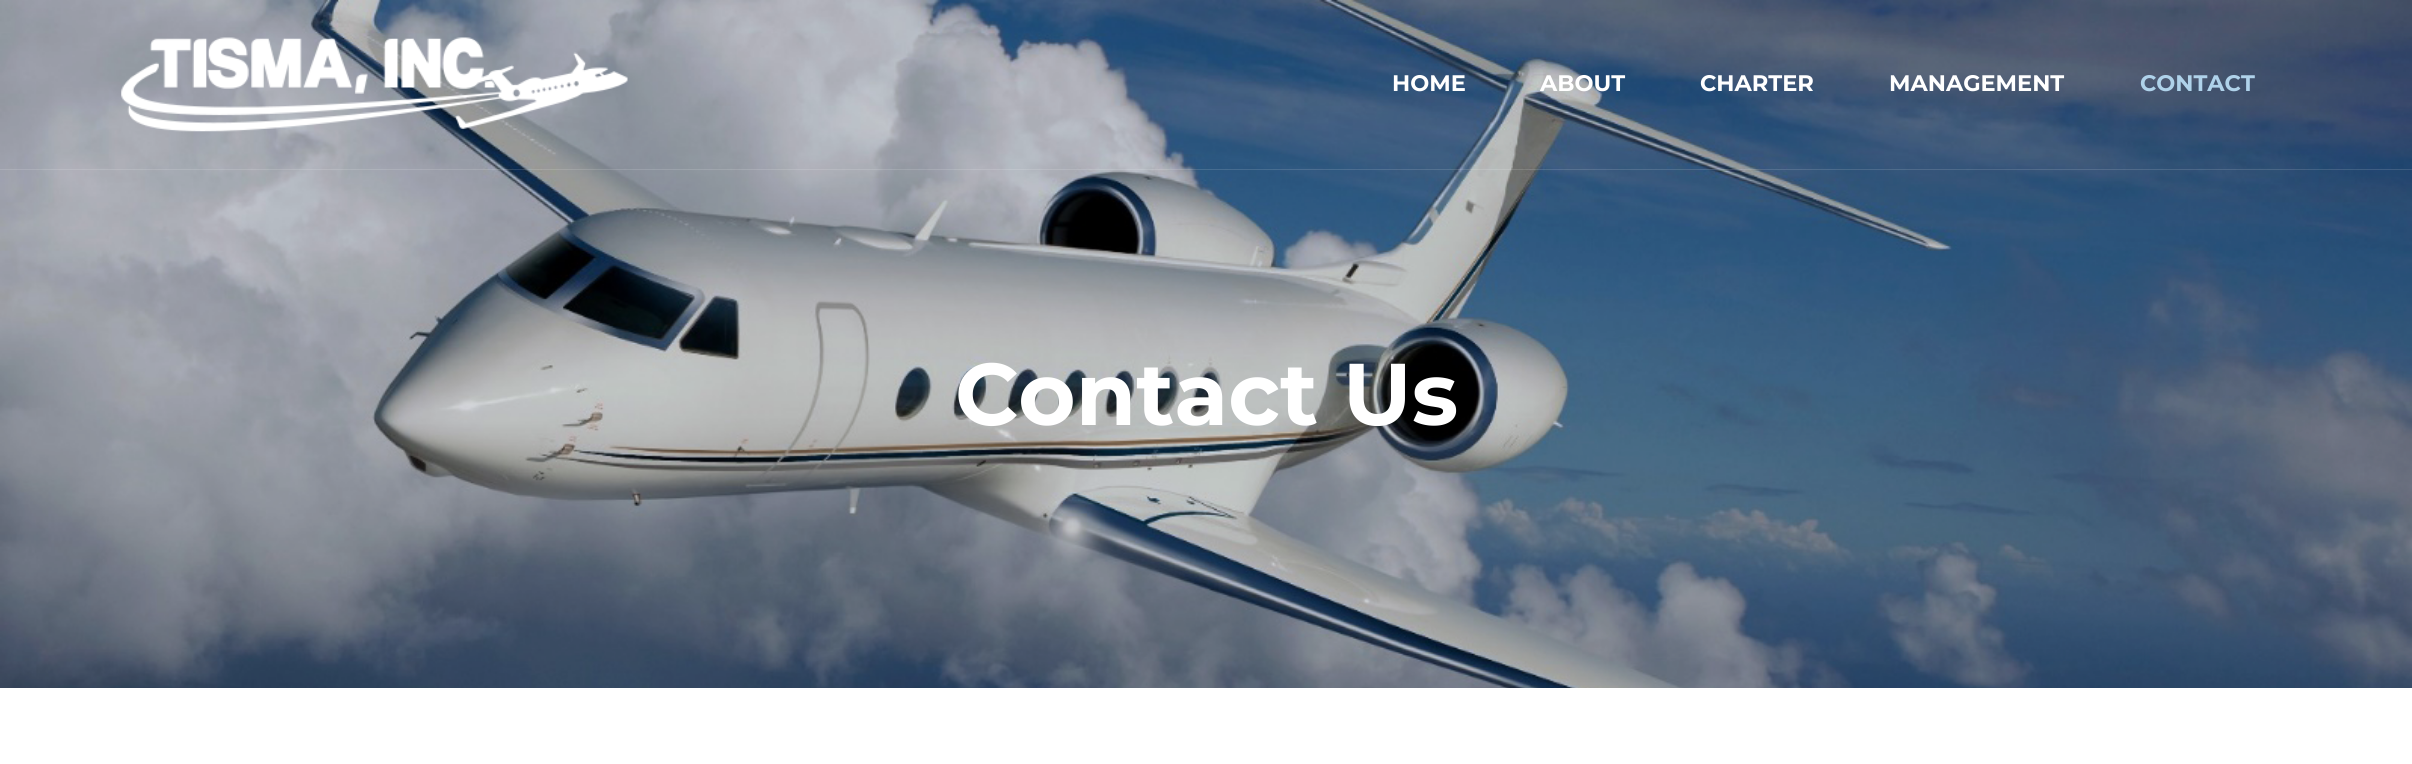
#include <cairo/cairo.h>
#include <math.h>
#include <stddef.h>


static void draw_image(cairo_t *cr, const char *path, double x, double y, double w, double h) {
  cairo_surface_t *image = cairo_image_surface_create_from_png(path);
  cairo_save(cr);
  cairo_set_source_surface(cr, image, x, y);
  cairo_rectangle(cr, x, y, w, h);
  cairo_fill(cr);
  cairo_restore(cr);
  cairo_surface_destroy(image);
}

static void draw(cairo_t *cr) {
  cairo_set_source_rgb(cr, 1, 1, 1);
  cairo_paint(cr);
  draw_image(cr, "images/2.png", 0, 0, 2412, 688);
  cairo_set_source_rgba(cr, 1, 1, 1, 0.13);
  cairo_rectangle(cr, 0, 169, 2412, 1);
  cairo_fill(cr);
  draw_image(cr, "images/1.png", 121, 37, 507, 95);
  cairo_select_font_face(cr, "Montserrat Thin", CAIRO_FONT_SLANT_NORMAL, CAIRO_FONT_WEIGHT_NORMAL);
  cairo_set_font_size(cr, 22.5);
  cairo_set_source_rgb(cr, 1, 1, 1);
  cairo_move_to(cr, 1392, 91);
  cairo_show_text(cr, "HOME");
  cairo_move_to(cr, 1540, 91);
  cairo_show_text(cr, "ABOUT");
  cairo_move_to(cr, 1700, 91);
  cairo_show_text(cr, "CHARTER");
  cairo_move_to(cr, 1889, 91);
  cairo_show_text(cr, "MANAGEMENT");
  cairo_set_source_rgb(cr, 175 / 255.0, 210 / 255.0, 234 / 255.0);
  cairo_move_to(cr, 2140, 91);
  cairo_show_text(cr, "CONTACT");
  cairo_set_font_size(cr, 87.5);
  cairo_set_source_rgb(cr, 1, 1, 1);
  cairo_move_to(cr, 955, 425);
  cairo_show_text(cr, "Contact Us");
}

int main(void) {
  cairo_surface_t *surface = cairo_image_surface_create(CAIRO_FORMAT_RGB24, 2412, 764);
  cairo_t *cr = cairo_create(surface);
  cairo_font_options_t *options = cairo_font_options_create();
  cairo_font_options_set_hint_metrics(options, CAIRO_HINT_METRICS_OFF);
  cairo_font_options_set_hint_style(options, CAIRO_HINT_STYLE_NONE);
  cairo_set_font_options(cr, options);
  cairo_set_miter_limit(cr, 4);
  draw(cr);
  cairo_surface_write_to_png(surface, "out.png");
  cairo_font_options_destroy(options);
  cairo_destroy(cr);
  cairo_surface_destroy(surface);
  return 0;
}
